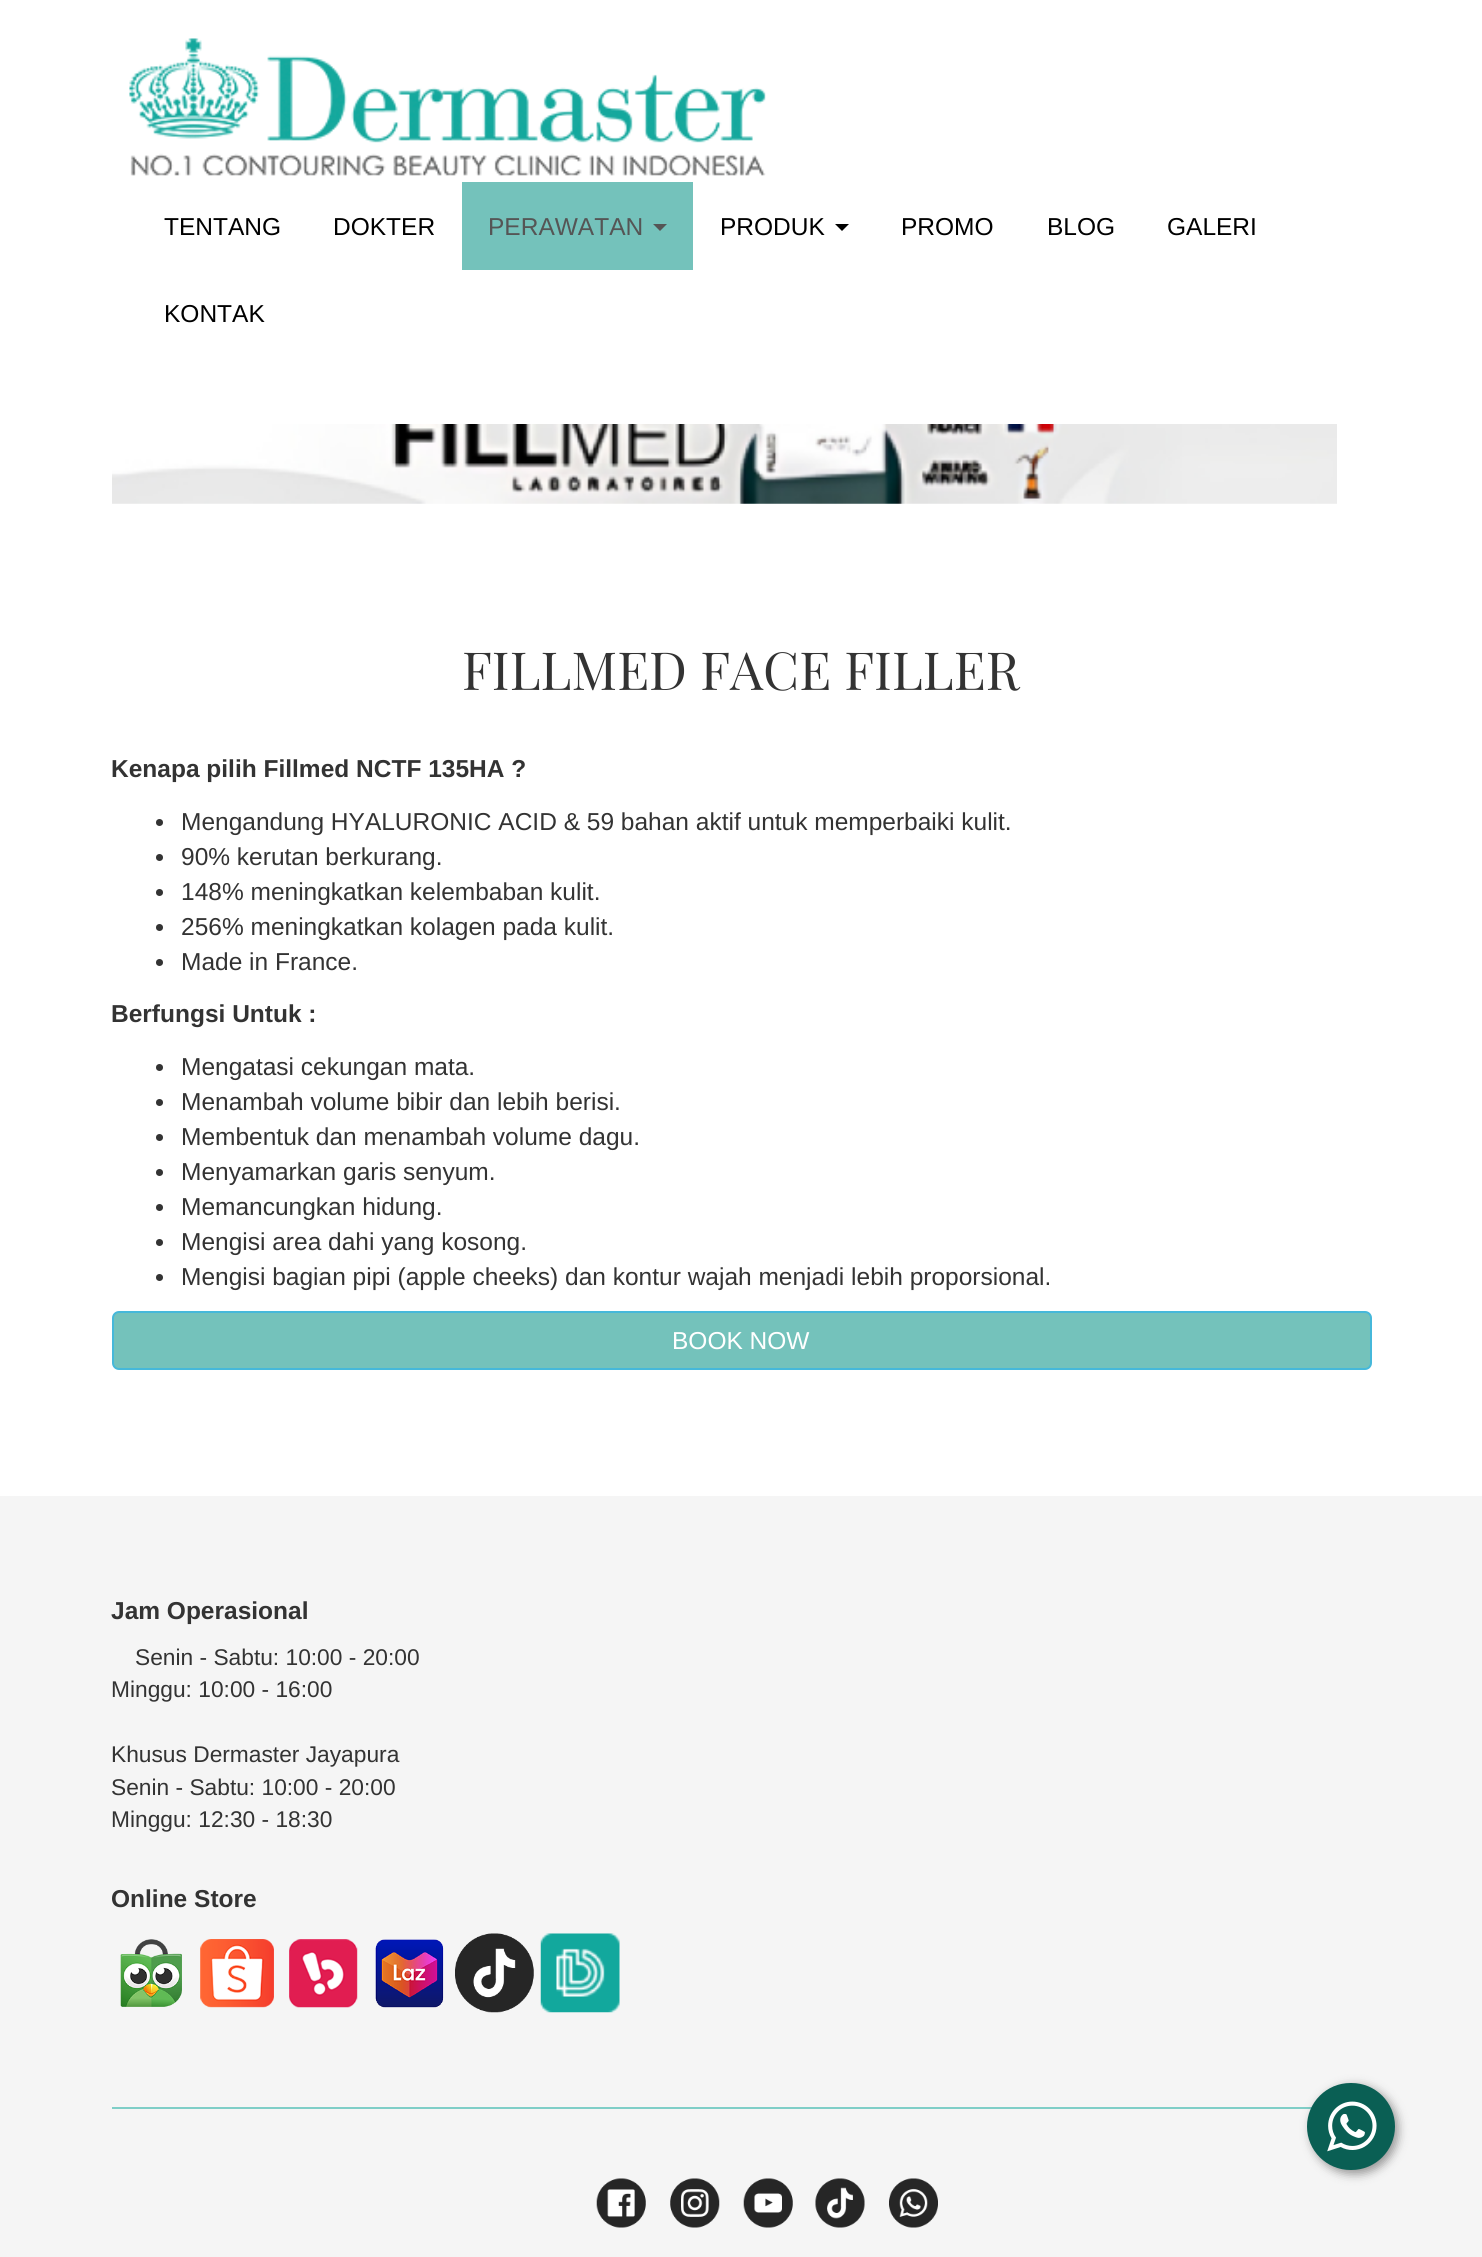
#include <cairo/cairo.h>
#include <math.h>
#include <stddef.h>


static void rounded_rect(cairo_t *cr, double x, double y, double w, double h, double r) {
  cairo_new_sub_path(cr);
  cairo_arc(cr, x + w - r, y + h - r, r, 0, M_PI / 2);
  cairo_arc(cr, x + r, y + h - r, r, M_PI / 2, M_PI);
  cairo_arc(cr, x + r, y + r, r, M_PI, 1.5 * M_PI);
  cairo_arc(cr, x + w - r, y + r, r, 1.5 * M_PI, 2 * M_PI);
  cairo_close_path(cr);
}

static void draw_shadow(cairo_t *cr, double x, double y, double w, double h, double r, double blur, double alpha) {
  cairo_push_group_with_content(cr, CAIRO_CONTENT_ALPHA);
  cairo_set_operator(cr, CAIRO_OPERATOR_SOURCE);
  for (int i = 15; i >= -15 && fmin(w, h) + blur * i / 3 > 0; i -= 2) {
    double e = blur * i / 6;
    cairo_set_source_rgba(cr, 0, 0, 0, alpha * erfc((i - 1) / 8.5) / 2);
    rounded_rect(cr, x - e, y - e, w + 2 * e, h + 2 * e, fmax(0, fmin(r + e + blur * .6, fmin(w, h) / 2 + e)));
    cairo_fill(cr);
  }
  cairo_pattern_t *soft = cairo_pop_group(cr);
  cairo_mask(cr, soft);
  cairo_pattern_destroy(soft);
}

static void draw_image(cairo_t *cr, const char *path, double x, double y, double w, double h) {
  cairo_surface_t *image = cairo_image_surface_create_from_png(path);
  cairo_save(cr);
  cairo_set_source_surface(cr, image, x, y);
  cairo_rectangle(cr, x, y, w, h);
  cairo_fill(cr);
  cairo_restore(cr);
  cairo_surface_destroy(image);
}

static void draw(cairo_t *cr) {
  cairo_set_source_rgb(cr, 1, 1, 1);
  cairo_paint(cr);
  draw_image(cr, "images/1.png", 129, 38, 637, 138);
  cairo_set_source_rgb(cr, 116 / 255.0, 194 / 255.0, 187 / 255.0);
  cairo_rectangle(cr, 462, 182, 231, 88);
  cairo_fill(cr);
  cairo_set_source_rgb(cr, 85 / 255.0, 85 / 255.0, 85 / 255.0);
  cairo_new_path(cr);
  cairo_move_to(cr, 653, 224);
  cairo_line_to(cr, 667, 224);
  cairo_line_to(cr, 660, 231);
  cairo_close_path(cr);
  cairo_fill(cr);
  cairo_set_source_rgb(cr, 0, 0, 0);
  cairo_new_path(cr);
  cairo_move_to(cr, 835, 224);
  cairo_line_to(cr, 849, 224);
  cairo_line_to(cr, 842, 231);
  cairo_close_path(cr);
  cairo_fill(cr);
  draw_image(cr, "images/2.png", 112, 424, 1225, 80);
  cairo_set_source_rgb(cr, 51 / 255.0, 51 / 255.0, 51 / 255.0);
  cairo_arc(cr, 159.5, 822.5, 3.5, 0, 2 * M_PI);
  cairo_fill(cr);
  cairo_arc(cr, 159.5, 857.5, 3.5, 0, 2 * M_PI);
  cairo_fill(cr);
  cairo_arc(cr, 159.5, 892.5, 3.5, 0, 2 * M_PI);
  cairo_fill(cr);
  cairo_arc(cr, 159.5, 927.5, 3.5, 0, 2 * M_PI);
  cairo_fill(cr);
  cairo_arc(cr, 159.5, 962.5, 3.5, 0, 2 * M_PI);
  cairo_fill(cr);
  cairo_arc(cr, 159.5, 1067.5, 3.5, 0, 2 * M_PI);
  cairo_fill(cr);
  cairo_arc(cr, 159.5, 1102.5, 3.5, 0, 2 * M_PI);
  cairo_fill(cr);
  cairo_arc(cr, 159.5, 1137.5, 3.5, 0, 2 * M_PI);
  cairo_fill(cr);
  cairo_arc(cr, 159.5, 1172.5, 3.5, 0, 2 * M_PI);
  cairo_fill(cr);
  cairo_arc(cr, 159.5, 1207.5, 3.5, 0, 2 * M_PI);
  cairo_fill(cr);
  cairo_arc(cr, 159.5, 1242.5, 3.5, 0, 2 * M_PI);
  cairo_fill(cr);
  cairo_arc(cr, 159.5, 1277.5, 3.5, 0, 2 * M_PI);
  cairo_fill(cr);
  cairo_set_source_rgb(cr, 116 / 255.0, 194 / 255.0, 187 / 255.0);
  rounded_rect(cr, 113, 1312, 1258, 57, 6);
  cairo_fill_preserve(cr);
  cairo_set_source_rgb(cr, 70 / 255.0, 184 / 255.0, 218 / 255.0);
  cairo_stroke(cr);
  cairo_set_source_rgb(cr, 245 / 255.0, 245 / 255.0, 245 / 255.0);
  cairo_rectangle(cr, 0, 1496, 1482, 761);
  cairo_fill(cr);
  draw_image(cr, "images/3.png", 120, 1939, 62, 68);
  draw_image(cr, "images/4.png", 200, 1939, 74, 69);
  draw_image(cr, "images/5.png", 289, 1939, 69, 69);
  draw_image(cr, "images/6.png", 375, 1939, 69, 69);
  draw_image(cr, "images/7.png", 455, 1933, 79, 80);
  draw_image(cr, "images/8.png", 540, 1933, 80, 80);
  cairo_set_source_rgb(cr, 127 / 255.0, 206 / 255.0, 199 / 255.0);
  cairo_rectangle(cr, 112, 2107, 1200, 2);
  cairo_fill(cr);
  draw_image(cr, "images/9.png", 596, 2178, 50, 50);
  draw_image(cr, "images/10.png", 670, 2178, 50, 50);
  draw_image(cr, "images/11.png", 743, 2178, 50, 50);
  draw_image(cr, "images/12.png", 815, 2178, 50, 50);
  draw_image(cr, "images/13.png", 889, 2178, 49, 50);
  cairo_set_source_rgb(cr, 0, 0, 0);
  draw_shadow(cr, 1311, 2086, 87, 88, 43.5, 5, 0.4);
  cairo_set_source_rgb(cr, 10 / 255.0, 95 / 255.0, 84 / 255.0);
  rounded_rect(cr, 1307, 2083, 88, 87, 43.5);
  cairo_fill(cr);
  draw_image(cr, "images/14.png", 1327, 2101, 50, 51);
  cairo_select_font_face(cr, "Liberation Sans", CAIRO_FONT_SLANT_NORMAL, CAIRO_FONT_WEIGHT_NORMAL);
  cairo_set_font_size(cr, 24.5);
  cairo_set_source_rgb(cr, 0, 0, 0);
  cairo_move_to(cr, 164, 235);
  cairo_show_text(cr, "TENTANG");
  cairo_move_to(cr, 333, 235);
  cairo_show_text(cr, "DOKTER");
  cairo_set_source_rgb(cr, 85 / 255.0, 85 / 255.0, 85 / 255.0);
  cairo_move_to(cr, 488, 235);
  cairo_show_text(cr, "PERAWATAN");
  cairo_set_source_rgb(cr, 0, 0, 0);
  cairo_move_to(cr, 720, 235);
  cairo_show_text(cr, "PRODUK");
  cairo_move_to(cr, 901, 235);
  cairo_show_text(cr, "PROMO");
  cairo_move_to(cr, 1047, 235);
  cairo_show_text(cr, "BLOG");
  cairo_move_to(cr, 1167, 235);
  cairo_show_text(cr, "GALERI");
  cairo_move_to(cr, 164, 322);
  cairo_show_text(cr, "KONTAK");
  cairo_select_font_face(cr, "Playfair Display", CAIRO_FONT_SLANT_NORMAL, CAIRO_FONT_WEIGHT_NORMAL);
  cairo_set_font_size(cr, 52.5);
  cairo_set_source_rgb(cr, 51 / 255.0, 51 / 255.0, 51 / 255.0);
  cairo_move_to(cr, 462, 690);
  cairo_show_text(cr, "FILLMED FACE FILLER");
  cairo_select_font_face(cr, "Liberation Sans", CAIRO_FONT_SLANT_NORMAL, CAIRO_FONT_WEIGHT_BOLD);
  cairo_set_font_size(cr, 24.5);
  cairo_move_to(cr, 111, 777);
  cairo_show_text(cr, "Kenapa pilih Fillmed NCTF 135HA ?");
  cairo_select_font_face(cr, "Liberation Sans", CAIRO_FONT_SLANT_NORMAL, CAIRO_FONT_WEIGHT_NORMAL);
  cairo_move_to(cr, 181, 830);
  cairo_show_text(cr, "Mengandung HYALURONIC ACID & 59 bahan aktif untuk memperbaiki kulit.");
  cairo_move_to(cr, 181, 865);
  cairo_show_text(cr, "90% kerutan berkurang.");
  cairo_move_to(cr, 181, 900);
  cairo_show_text(cr, "148% meningkatkan kelembaban kulit.");
  cairo_move_to(cr, 181, 935);
  cairo_show_text(cr, "256% meningkatkan kolagen pada kulit.");
  cairo_move_to(cr, 181, 970);
  cairo_show_text(cr, "Made in France.");
  cairo_select_font_face(cr, "Liberation Sans", CAIRO_FONT_SLANT_NORMAL, CAIRO_FONT_WEIGHT_BOLD);
  cairo_move_to(cr, 111, 1022);
  cairo_show_text(cr, "Berfungsi Untuk :");
  cairo_select_font_face(cr, "Liberation Sans", CAIRO_FONT_SLANT_NORMAL, CAIRO_FONT_WEIGHT_NORMAL);
  cairo_move_to(cr, 181, 1075);
  cairo_show_text(cr, "Mengatasi cekungan mata.");
  cairo_move_to(cr, 181, 1110);
  cairo_show_text(cr, "Menambah volume bibir dan lebih berisi.");
  cairo_move_to(cr, 181, 1145);
  cairo_show_text(cr, "Membentuk dan menambah volume dagu.");
  cairo_move_to(cr, 181, 1180);
  cairo_show_text(cr, "Menyamarkan garis senyum.");
  cairo_move_to(cr, 181, 1215);
  cairo_show_text(cr, "Memancungkan hidung.");
  cairo_move_to(cr, 181, 1250);
  cairo_show_text(cr, "Mengisi area dahi yang kosong.");
  cairo_move_to(cr, 181, 1285);
  cairo_show_text(cr, "Mengisi bagian pipi (apple cheeks) dan kontur wajah menjadi lebih proporsional.");
  cairo_set_source_rgb(cr, 1, 1, 1);
  cairo_move_to(cr, 672, 1349);
  cairo_show_text(cr, "BOOK NOW");
  cairo_select_font_face(cr, "Liberation Sans", CAIRO_FONT_SLANT_NORMAL, CAIRO_FONT_WEIGHT_BOLD);
  cairo_set_source_rgb(cr, 51 / 255.0, 51 / 255.0, 51 / 255.0);
  cairo_move_to(cr, 111, 1619);
  cairo_show_text(cr, "Jam Operasional");
  cairo_select_font_face(cr, "Liberation Sans", CAIRO_FONT_SLANT_NORMAL, CAIRO_FONT_WEIGHT_NORMAL);
  cairo_set_font_size(cr, 22.75);
  cairo_move_to(cr, 135, 1665);
  cairo_show_text(cr, "Senin - Sabtu: 10:00 - 20:00");
  cairo_move_to(cr, 111, 1697);
  cairo_show_text(cr, "Minggu: 10:00 - 16:00");
  cairo_move_to(cr, 111, 1762);
  cairo_show_text(cr, "Khusus Dermaster Jayapura");
  cairo_move_to(cr, 111, 1795);
  cairo_show_text(cr, "Senin - Sabtu: 10:00 - 20:00");
  cairo_move_to(cr, 111, 1827);
  cairo_show_text(cr, "Minggu: 12:30 - 18:30");
  cairo_select_font_face(cr, "Liberation Sans", CAIRO_FONT_SLANT_NORMAL, CAIRO_FONT_WEIGHT_BOLD);
  cairo_set_font_size(cr, 24.5);
  cairo_move_to(cr, 111, 1907);
  cairo_show_text(cr, "Online Store");
}

int main(void) {
  cairo_surface_t *surface = cairo_image_surface_create(CAIRO_FORMAT_RGB24, 1482, 2257);
  cairo_t *cr = cairo_create(surface);
  cairo_font_options_t *options = cairo_font_options_create();
  cairo_font_options_set_hint_metrics(options, CAIRO_HINT_METRICS_OFF);
  cairo_font_options_set_hint_style(options, CAIRO_HINT_STYLE_NONE);
  cairo_set_font_options(cr, options);
  cairo_set_miter_limit(cr, 4);
  draw(cr);
  cairo_surface_write_to_png(surface, "out.png");
  cairo_font_options_destroy(options);
  cairo_destroy(cr);
  cairo_surface_destroy(surface);
  return 0;
}
